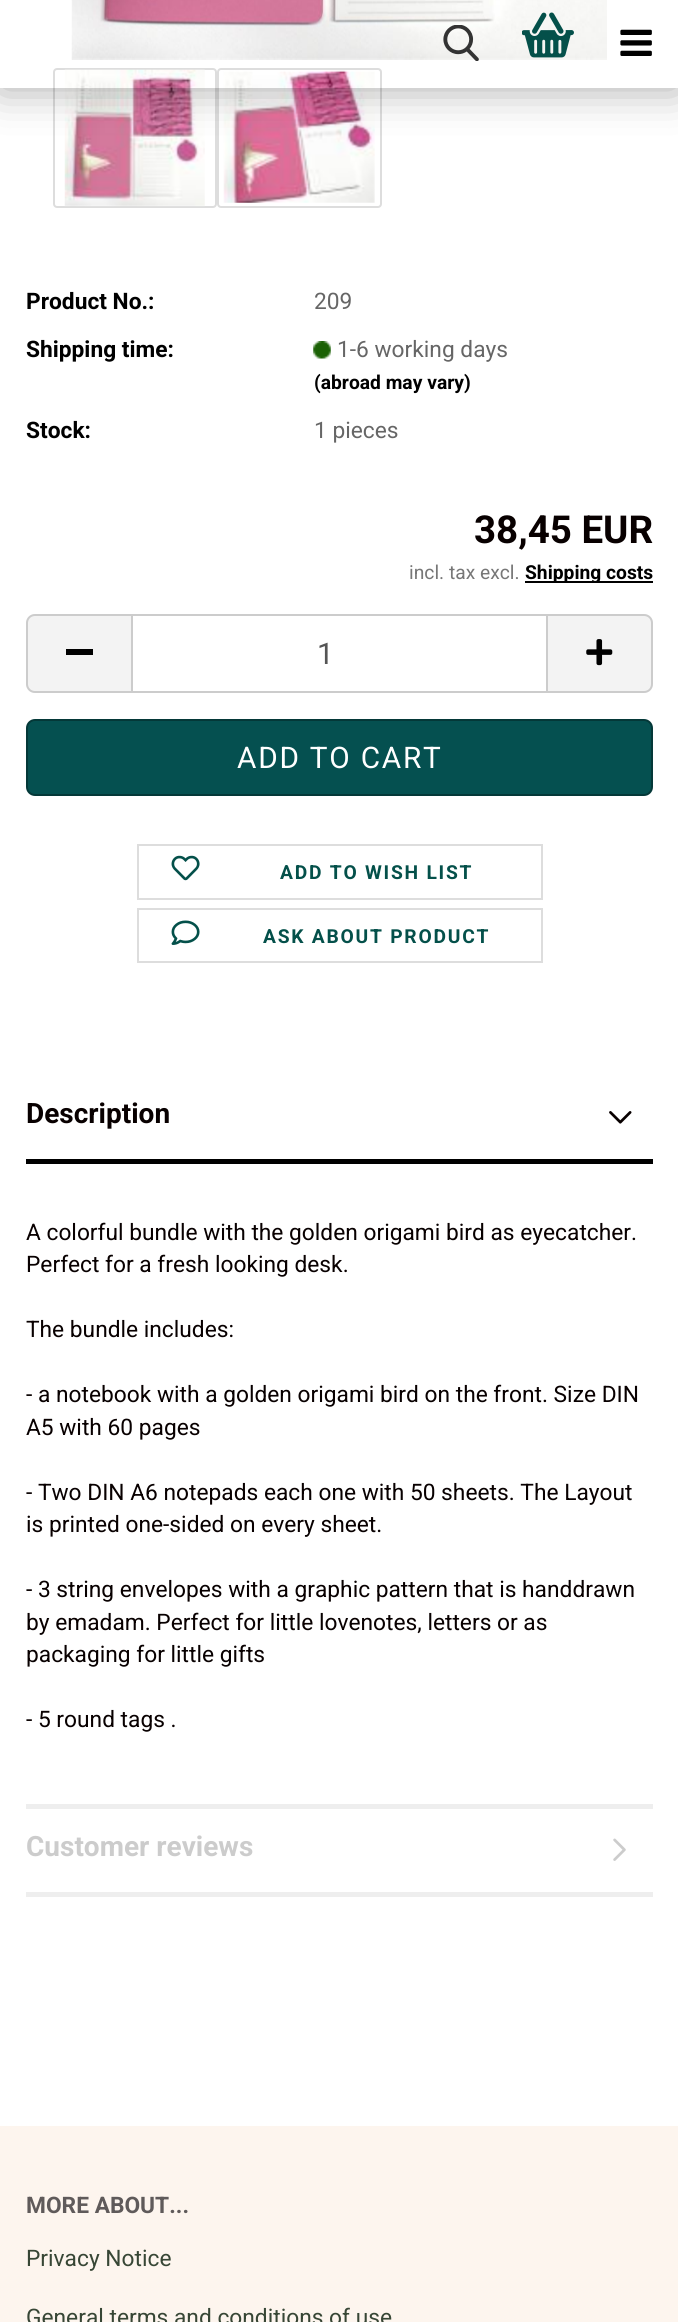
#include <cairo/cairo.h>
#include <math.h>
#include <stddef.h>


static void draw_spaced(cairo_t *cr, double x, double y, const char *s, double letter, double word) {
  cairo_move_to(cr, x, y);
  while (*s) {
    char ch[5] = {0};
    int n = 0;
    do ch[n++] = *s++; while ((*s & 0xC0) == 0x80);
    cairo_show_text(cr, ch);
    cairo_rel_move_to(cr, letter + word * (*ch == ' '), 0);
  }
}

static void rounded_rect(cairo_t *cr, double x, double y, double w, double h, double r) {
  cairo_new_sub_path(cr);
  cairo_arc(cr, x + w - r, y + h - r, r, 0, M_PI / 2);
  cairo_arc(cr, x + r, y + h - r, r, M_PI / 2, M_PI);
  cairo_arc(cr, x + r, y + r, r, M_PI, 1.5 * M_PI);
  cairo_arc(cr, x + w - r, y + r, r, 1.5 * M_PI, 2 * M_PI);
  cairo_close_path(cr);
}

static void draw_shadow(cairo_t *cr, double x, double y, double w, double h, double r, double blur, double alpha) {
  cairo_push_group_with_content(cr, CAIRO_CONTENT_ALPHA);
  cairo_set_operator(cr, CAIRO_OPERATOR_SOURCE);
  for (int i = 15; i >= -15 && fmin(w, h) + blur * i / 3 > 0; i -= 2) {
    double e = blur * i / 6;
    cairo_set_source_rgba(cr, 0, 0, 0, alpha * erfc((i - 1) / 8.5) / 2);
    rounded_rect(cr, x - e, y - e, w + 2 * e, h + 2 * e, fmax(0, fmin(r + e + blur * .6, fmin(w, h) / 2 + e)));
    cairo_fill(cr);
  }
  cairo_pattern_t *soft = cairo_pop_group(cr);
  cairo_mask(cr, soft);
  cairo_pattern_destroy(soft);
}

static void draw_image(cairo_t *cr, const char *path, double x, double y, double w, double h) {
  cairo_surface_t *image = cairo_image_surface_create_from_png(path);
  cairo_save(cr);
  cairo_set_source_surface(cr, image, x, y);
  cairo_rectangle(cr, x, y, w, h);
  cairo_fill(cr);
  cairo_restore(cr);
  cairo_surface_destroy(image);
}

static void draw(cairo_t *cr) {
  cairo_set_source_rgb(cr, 1, 1, 1);
  cairo_paint(cr);
  draw_image(cr, "images/4.png", 71, 0, 536, 60);
  rounded_rect(cr, 54, 69, 162, 138, 3);
  cairo_set_source_rgb(cr, 221 / 255.0, 221 / 255.0, 221 / 255.0);
  cairo_stroke(cr);
  draw_image(cr, "images/5.png", 64, 69, 141, 138);
  rounded_rect(cr, 218, 69, 163, 138, 3);
  cairo_stroke(cr);
  draw_image(cr, "images/6.png", 223, 70, 152, 133);
  cairo_save(cr);
  cairo_set_fill_rule(cr, CAIRO_FILL_RULE_EVEN_ODD);
  cairo_new_path(cr);
  cairo_move_to(cr, 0, 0);
  cairo_line_to(cr, 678, 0);
  cairo_line_to(cr, 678, 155);
  cairo_line_to(cr, 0, 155);
  cairo_close_path(cr);
  cairo_move_to(cr, 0, 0);
  cairo_line_to(cr, 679, 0);
  cairo_line_to(cr, 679, 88);
  cairo_line_to(cr, 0, 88);
  cairo_close_path(cr);
  cairo_clip(cr);
  cairo_set_source_rgb(cr, 0, 0, 0);
  draw_shadow(cr, 0, 0, 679, 88, 0, 22, 0.35);
  cairo_restore(cr);
  draw_image(cr, "images/1.png", 443, 25, 36, 36);
  draw_image(cr, "images/2.png", 522, 12, 52, 46);
  draw_image(cr, "images/3.png", 620, 29, 32, 27);
  draw_image(cr, "images/7.png", 313, 341, 18, 18);
  cairo_set_source_rgb(cr, 0, 0, 0);
  cairo_rectangle(cr, 525, 581, 128, 2);
  cairo_fill(cr);
  cairo_set_source_rgb(cr, 243 / 255.0, 243 / 255.0, 243 / 255.0);
  cairo_new_path(cr);
  cairo_move_to(cr, 35, 614);
  cairo_line_to(cr, 131, 614);
  cairo_line_to(cr, 131, 693);
  cairo_line_to(cr, 35, 693);
  cairo_curve_to(cr, 30, 693, 26, 689, 26, 684);
  cairo_line_to(cr, 26, 623);
  cairo_curve_to(cr, 26, 618, 30, 614, 35, 614);
  cairo_close_path(cr);
  cairo_fill(cr);
  cairo_set_source_rgb(cr, 204 / 255.0, 204 / 255.0, 204 / 255.0);
  cairo_set_fill_rule(cr, CAIRO_FILL_RULE_EVEN_ODD);
  cairo_new_path(cr);
  cairo_move_to(cr, 35, 614);
  cairo_line_to(cr, 131, 614);
  cairo_line_to(cr, 131, 693);
  cairo_line_to(cr, 35, 693);
  cairo_curve_to(cr, 30, 693, 26, 689, 26, 684);
  cairo_line_to(cr, 26, 623);
  cairo_curve_to(cr, 26, 618, 30, 614, 35, 614);
  cairo_close_path(cr);
  cairo_move_to(cr, 35, 616);
  cairo_line_to(cr, 131, 616);
  cairo_line_to(cr, 131, 691);
  cairo_line_to(cr, 35, 691);
  cairo_curve_to(cr, 31, 691, 28, 688, 28, 684);
  cairo_line_to(cr, 28, 623);
  cairo_curve_to(cr, 28, 619, 31, 616, 35, 616);
  cairo_close_path(cr);
  cairo_fill(cr);
  cairo_set_source_rgb(cr, 0, 0, 0);
  cairo_rectangle(cr, 66, 649, 27, 6);
  cairo_fill(cr);
  cairo_rectangle(cr, 132, 615, 415, 77);
  cairo_set_source_rgb(cr, 204 / 255.0, 204 / 255.0, 204 / 255.0);
  cairo_stroke(cr);
  cairo_set_source_rgb(cr, 243 / 255.0, 243 / 255.0, 243 / 255.0);
  cairo_new_path(cr);
  cairo_move_to(cr, 548, 614);
  cairo_line_to(cr, 644, 614);
  cairo_curve_to(cr, 649, 614, 653, 618, 653, 623);
  cairo_line_to(cr, 653, 684);
  cairo_curve_to(cr, 653, 689, 649, 693, 644, 693);
  cairo_line_to(cr, 548, 693);
  cairo_close_path(cr);
  cairo_fill(cr);
  cairo_set_source_rgb(cr, 204 / 255.0, 204 / 255.0, 204 / 255.0);
  cairo_new_path(cr);
  cairo_move_to(cr, 548, 614);
  cairo_line_to(cr, 644, 614);
  cairo_curve_to(cr, 649, 614, 653, 618, 653, 623);
  cairo_line_to(cr, 653, 684);
  cairo_curve_to(cr, 653, 689, 649, 693, 644, 693);
  cairo_line_to(cr, 548, 693);
  cairo_close_path(cr);
  cairo_move_to(cr, 548, 616);
  cairo_line_to(cr, 644, 616);
  cairo_curve_to(cr, 648, 616, 651, 619, 651, 623);
  cairo_line_to(cr, 651, 684);
  cairo_curve_to(cr, 651, 688, 648, 691, 644, 691);
  cairo_line_to(cr, 548, 691);
  cairo_close_path(cr);
  cairo_fill(cr);
  draw_image(cr, "images/8.png", 586, 639, 27, 27);
  cairo_set_source_rgb(cr, 5 / 255.0, 80 / 255.0, 80 / 255.0);
  rounded_rect(cr, 27, 720, 625, 75, 8);
  cairo_fill_preserve(cr);
  cairo_set_source_rgb(cr, 4 / 255.0, 56 / 255.0, 56 / 255.0);
  cairo_stroke(cr);
  cairo_rectangle(cr, 138, 845, 404, 54);
  cairo_set_source_rgb(cr, 221 / 255.0, 221 / 255.0, 221 / 255.0);
  cairo_stroke(cr);
  draw_image(cr, "images/9.png", 171, 855, 29, 26);
  cairo_rectangle(cr, 138, 909, 404, 53);
  cairo_stroke(cr);
  draw_image(cr, "images/10.png", 171, 920, 29, 25);
  cairo_set_source_rgb(cr, 0, 0, 0);
  cairo_rectangle(cr, 26, 1159, 627, 5);
  cairo_fill(cr);
  draw_image(cr, "images/11.png", 609, 1111, 23, 13);
  cairo_set_source_rgb(cr, 238 / 255.0, 238 / 255.0, 238 / 255.0);
  cairo_rectangle(cr, 26, 1804, 627, 5);
  cairo_fill(cr);
  cairo_rectangle(cr, 26, 1892, 627, 5);
  cairo_fill(cr);
  draw_image(cr, "images/12.png", 613, 1838, 13, 23);
  cairo_set_source_rgb(cr, 253 / 255.0, 245 / 255.0, 238 / 255.0);
  cairo_rectangle(cr, 0, 2126, 678, 196);
  cairo_fill(cr);
  cairo_select_font_face(cr, "Roboto", CAIRO_FONT_SLANT_NORMAL, CAIRO_FONT_WEIGHT_BOLD);
  cairo_set_font_size(cr, 22.75);
  cairo_set_source_rgb(cr, 0, 0, 0);
  cairo_move_to(cr, 26, 309);
  cairo_show_text(cr, "Product No.:");
  cairo_select_font_face(cr, "Roboto", CAIRO_FONT_SLANT_NORMAL, CAIRO_FONT_WEIGHT_NORMAL);
  cairo_set_source_rgb(cr, 102 / 255.0, 102 / 255.0, 102 / 255.0);
  cairo_move_to(cr, 314, 309);
  cairo_show_text(cr, "209");
  cairo_select_font_face(cr, "Roboto", CAIRO_FONT_SLANT_NORMAL, CAIRO_FONT_WEIGHT_BOLD);
  cairo_set_source_rgb(cr, 0, 0, 0);
  cairo_move_to(cr, 26, 357);
  cairo_show_text(cr, "Shipping time:");
  cairo_select_font_face(cr, "Roboto", CAIRO_FONT_SLANT_NORMAL, CAIRO_FONT_WEIGHT_NORMAL);
  cairo_set_source_rgb(cr, 102 / 255.0, 102 / 255.0, 102 / 255.0);
  cairo_move_to(cr, 337, 357);
  cairo_show_text(cr, "1-6 working days");
  cairo_select_font_face(cr, "Roboto", CAIRO_FONT_SLANT_NORMAL, CAIRO_FONT_WEIGHT_BOLD);
  cairo_set_font_size(cr, 19.25);
  cairo_set_source_rgb(cr, 0, 0, 0);
  cairo_move_to(cr, 314, 389);
  cairo_show_text(cr, "(abroad may vary)");
  cairo_set_font_size(cr, 22.75);
  cairo_move_to(cr, 26, 438);
  cairo_show_text(cr, "Stock:");
  cairo_select_font_face(cr, "Roboto", CAIRO_FONT_SLANT_NORMAL, CAIRO_FONT_WEIGHT_NORMAL);
  cairo_set_source_rgb(cr, 102 / 255.0, 102 / 255.0, 102 / 255.0);
  cairo_move_to(cr, 314, 438);
  cairo_show_text(cr, "1 pieces");
  cairo_select_font_face(cr, "Roboto", CAIRO_FONT_SLANT_NORMAL, CAIRO_FONT_WEIGHT_BOLD);
  cairo_set_font_size(cr, 38.5);
  cairo_set_source_rgb(cr, 8 / 255.0, 0, 0);
  cairo_move_to(cr, 474, 543);
  cairo_show_text(cr, "38,45 EUR");
  cairo_select_font_face(cr, "Roboto", CAIRO_FONT_SLANT_NORMAL, CAIRO_FONT_WEIGHT_NORMAL);
  cairo_set_font_size(cr, 19.25);
  cairo_set_source_rgb(cr, 119 / 255.0, 119 / 255.0, 119 / 255.0);
  cairo_move_to(cr, 409, 579);
  cairo_show_text(cr, "incl. tax excl.");
  cairo_select_font_face(cr, "Roboto", CAIRO_FONT_SLANT_NORMAL, CAIRO_FONT_WEIGHT_BOLD);
  cairo_set_source_rgb(cr, 0, 0, 0);
  cairo_move_to(cr, 525, 579);
  cairo_show_text(cr, "Shipping costs");
  cairo_select_font_face(cr, "Roboto", CAIRO_FONT_SLANT_NORMAL, CAIRO_FONT_WEIGHT_NORMAL);
  cairo_set_font_size(cr, 29.75);
  cairo_set_source_rgb(cr, 85 / 255.0, 85 / 255.0, 85 / 255.0);
  cairo_move_to(cr, 317, 664);
  cairo_show_text(cr, "1");
  cairo_set_source_rgb(cr, 1, 1, 1);
  draw_spaced(cr, 237, 768, "ADD TO CART", 1.75, 0);
  cairo_select_font_face(cr, "Roboto", CAIRO_FONT_SLANT_NORMAL, CAIRO_FONT_WEIGHT_BOLD);
  cairo_set_font_size(cr, 19.25);
  cairo_set_source_rgb(cr, 4 / 255.0, 80 / 255.0, 74 / 255.0);
  draw_spaced(cr, 280, 879, "ADD TO WISH LIST", 1.75, 0);
  draw_spaced(cr, 263, 943, "ASK ABOUT PRODUCT", 1.75, 0);
  cairo_set_font_size(cr, 28);
  cairo_set_source_rgb(cr, 8 / 255.0, 0, 0);
  cairo_move_to(cr, 26, 1123);
  cairo_show_text(cr, "Description");
  cairo_select_font_face(cr, "Roboto", CAIRO_FONT_SLANT_NORMAL, CAIRO_FONT_WEIGHT_NORMAL);
  cairo_set_font_size(cr, 22.75);
  cairo_move_to(cr, 26, 1240);
  cairo_show_text(cr, "A colorful bundle with the golden origami bird as eyecatcher.");
  cairo_move_to(cr, 26, 1272);
  cairo_show_text(cr, "Perfect for a fresh looking desk.");
  cairo_move_to(cr, 26, 1337);
  cairo_show_text(cr, "The bundle includes:");
  cairo_move_to(cr, 26, 1402);
  cairo_show_text(cr, "- a notebook with a golden origami bird on the front. Size DIN");
  cairo_move_to(cr, 26, 1435);
  cairo_show_text(cr, "A5 with 60 pages");
  cairo_move_to(cr, 26, 1500);
  cairo_show_text(cr, "- Two DIN A6 notepads each one with 50 sheets. The Layout");
  cairo_move_to(cr, 26, 1532);
  cairo_show_text(cr, "is printed one-sided on every sheet.");
  cairo_move_to(cr, 26, 1597);
  cairo_show_text(cr, "- 3 string envelopes with a graphic pattern that is handdrawn");
  cairo_move_to(cr, 26, 1630);
  cairo_show_text(cr, "by emadam. Perfect for little lovenotes, letters or as");
  cairo_move_to(cr, 26, 1662);
  cairo_show_text(cr, "packaging for little gifts");
  cairo_move_to(cr, 26, 1727);
  cairo_show_text(cr, "- 5 round tags .");
  cairo_select_font_face(cr, "Roboto", CAIRO_FONT_SLANT_NORMAL, CAIRO_FONT_WEIGHT_BOLD);
  cairo_set_font_size(cr, 28);
  cairo_set_source_rgb(cr, 204 / 255.0, 204 / 255.0, 204 / 255.0);
  cairo_move_to(cr, 26, 1856);
  cairo_show_text(cr, "Customer reviews");
  cairo_set_font_size(cr, 22.75);
  cairo_set_source_rgb(cr, 95 / 255.0, 90 / 255.0, 90 / 255.0);
  cairo_move_to(cr, 26, 2213);
  cairo_show_text(cr, "MORE ABOUT...");
  cairo_select_font_face(cr, "Roboto", CAIRO_FONT_SLANT_NORMAL, CAIRO_FONT_WEIGHT_NORMAL);
  cairo_set_source_rgb(cr, 55 / 255.0, 70 / 255.0, 53 / 255.0);
  cairo_move_to(cr, 26, 2266);
  cairo_show_text(cr, "Privacy Notice");
  cairo_move_to(cr, 26, 2325);
  cairo_show_text(cr, "General terms and conditions of use");
}

int main(void) {
  cairo_surface_t *surface = cairo_image_surface_create(CAIRO_FORMAT_RGB24, 678, 2322);
  cairo_t *cr = cairo_create(surface);
  cairo_font_options_t *options = cairo_font_options_create();
  cairo_font_options_set_hint_metrics(options, CAIRO_HINT_METRICS_OFF);
  cairo_font_options_set_hint_style(options, CAIRO_HINT_STYLE_NONE);
  cairo_set_font_options(cr, options);
  cairo_set_miter_limit(cr, 4);
  draw(cr);
  cairo_surface_write_to_png(surface, "out.png");
  cairo_font_options_destroy(options);
  cairo_destroy(cr);
  cairo_surface_destroy(surface);
  return 0;
}
